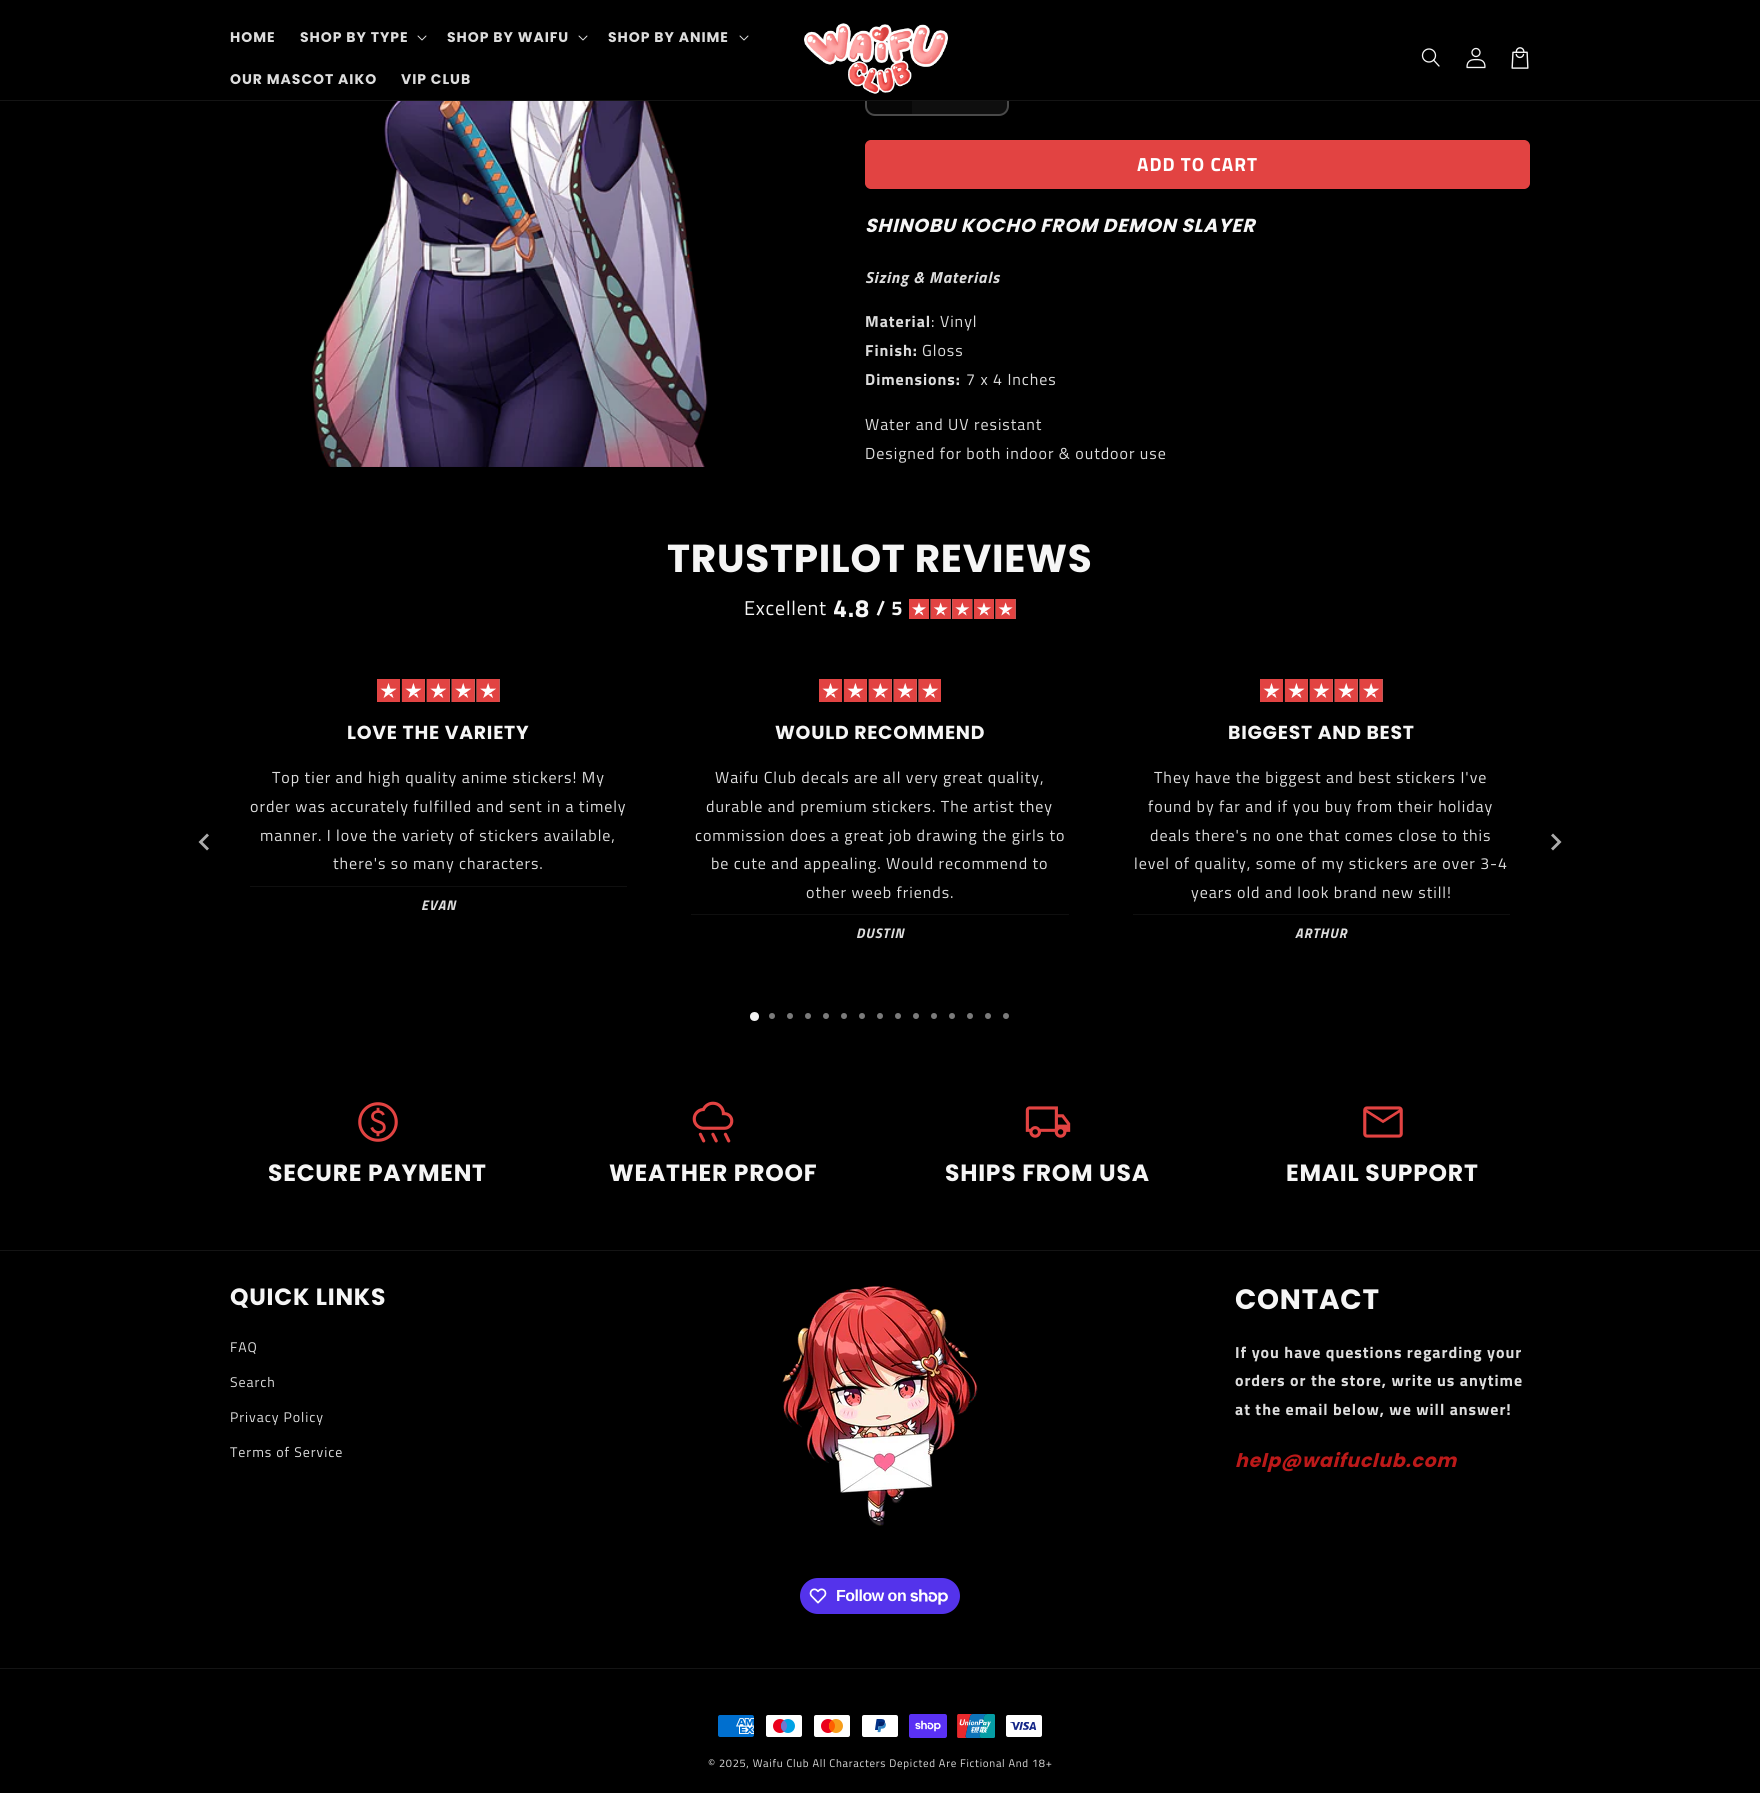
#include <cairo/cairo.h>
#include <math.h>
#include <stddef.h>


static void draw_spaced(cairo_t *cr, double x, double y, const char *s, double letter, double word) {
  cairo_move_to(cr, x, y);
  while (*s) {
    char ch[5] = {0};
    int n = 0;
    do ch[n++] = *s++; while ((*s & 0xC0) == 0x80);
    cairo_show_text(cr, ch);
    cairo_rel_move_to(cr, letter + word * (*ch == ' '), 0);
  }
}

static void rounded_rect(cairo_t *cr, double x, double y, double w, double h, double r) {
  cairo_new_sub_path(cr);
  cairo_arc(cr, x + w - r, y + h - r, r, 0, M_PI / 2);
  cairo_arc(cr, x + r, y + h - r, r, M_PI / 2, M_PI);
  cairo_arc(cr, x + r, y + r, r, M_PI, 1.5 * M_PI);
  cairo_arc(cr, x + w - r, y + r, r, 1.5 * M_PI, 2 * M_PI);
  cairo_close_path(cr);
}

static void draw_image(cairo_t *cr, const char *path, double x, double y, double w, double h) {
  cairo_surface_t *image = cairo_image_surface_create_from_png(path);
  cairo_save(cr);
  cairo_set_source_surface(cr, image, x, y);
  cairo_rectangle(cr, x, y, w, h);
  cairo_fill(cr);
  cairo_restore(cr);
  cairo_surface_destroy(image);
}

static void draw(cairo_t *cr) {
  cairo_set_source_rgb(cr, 0, 0, 0);
  cairo_paint(cr);
  cairo_set_source_rgb(cr, 7 / 255.0, 7 / 255.0, 7 / 255.0);
  cairo_new_path(cr);
  cairo_move_to(cr, 875, 69);
  cairo_line_to(cr, 912, 69);
  cairo_line_to(cr, 912, 114);
  cairo_line_to(cr, 875, 114);
  cairo_curve_to(cr, 870.5, 114, 867, 110.5, 867, 106);
  cairo_line_to(cr, 867, 77);
  cairo_curve_to(cr, 867, 72.5, 870.5, 69, 875, 69);
  cairo_close_path(cr);
  cairo_fill(cr);
  cairo_set_source_rgb(cr, 15 / 255.0, 15 / 255.0, 15 / 255.0);
  cairo_rectangle(cr, 912, 101, 50, 13);
  cairo_fill(cr);
  cairo_new_path(cr);
  cairo_move_to(cr, 962, 69);
  cairo_line_to(cr, 999, 69);
  cairo_curve_to(cr, 1003.5, 69, 1007, 72.5, 1007, 77);
  cairo_line_to(cr, 1007, 106);
  cairo_curve_to(cr, 1007, 110.5, 1003.5, 114, 999, 114);
  cairo_line_to(cr, 962, 114);
  cairo_close_path(cr);
  cairo_fill(cr);
  rounded_rect(cr, 866, 68, 142, 47, 9);
  cairo_set_source_rgba(cr, 245 / 255.0, 245 / 255.0, 245 / 255.0, 0.3);
  cairo_stroke(cr);
  cairo_set_source_rgb(cr, 0, 0, 0);
  cairo_rectangle(cr, 865, 67, 144, 33);
  cairo_fill(cr);
  cairo_set_source_rgb(cr, 20 / 255.0, 20 / 255.0, 20 / 255.0);
  cairo_rectangle(cr, 0, 100, 1760, 1);
  cairo_fill(cr);
  draw_image(cr, "images/1.png", 417, 35, 10, 6);
  draw_image(cr, "images/1.png", 578, 35, 10, 6);
  draw_image(cr, "images/1.png", 739, 35, 10, 6);
  draw_image(cr, "images/2.png", 804, 23, 144, 71);
  cairo_arc(cr, 1429, 55.5, 6.5, 0, 2 * M_PI);
  cairo_set_source_rgb(cr, 245 / 255.0, 245 / 255.0, 245 / 255.0);
  cairo_set_line_width(cr, 1.3);
  cairo_stroke(cr);
  cairo_new_path(cr);
  cairo_move_to(cr, 1439, 66);
  cairo_line_to(cr, 1433.5, 60);
  cairo_set_line_cap(cr, CAIRO_LINE_CAP_ROUND);
  cairo_set_line_join(cr, CAIRO_LINE_JOIN_ROUND);
  cairo_stroke(cr);
  draw_image(cr, "images/3.png", 1466, 47, 20, 22);
  draw_image(cr, "images/4.png", 1511, 47, 18, 22);
  draw_image(cr, "images/5.png", 311, 101, 397, 366);
  rounded_rect(cr, 866, 141, 663, 47, 7);
  cairo_set_source_rgb(cr, 226 / 255.0, 67 / 255.0, 66 / 255.0);
  cairo_set_line_width(cr, 2);
  cairo_set_line_cap(cr, CAIRO_LINE_CAP_BUTT);
  cairo_set_line_join(cr, CAIRO_LINE_JOIN_MITER);
  cairo_stroke(cr);
  rounded_rect(cr, 865, 140, 665, 49, 6);
  cairo_fill(cr);
  draw_image(cr, "images/7.png", 928, 599, 88, 20);
  draw_image(cr, "images/6.png", 909, 599, 107, 20);
  draw_image(cr, "images/8.png", 377, 679, 123, 23);
  draw_image(cr, "images/9.png", 377, 679, 123, 23);
  cairo_set_source_rgb(cr, 15 / 255.0, 15 / 255.0, 15 / 255.0);
  cairo_rectangle(cr, 250, 886, 377, 1);
  cairo_fill(cr);
  draw_image(cr, "images/10.png", 819, 679, 100, 23);
  draw_image(cr, "images/11.png", 819, 679, 122, 23);
  cairo_rectangle(cr, 691, 914, 378, 1);
  cairo_fill(cr);
  draw_image(cr, "images/8.png", 1260, 679, 123, 23);
  draw_image(cr, "images/9.png", 1260, 679, 123, 23);
  cairo_rectangle(cr, 1133, 914, 377, 1);
  cairo_fill(cr);
  cairo_set_source_rgb(cr, 172 / 255.0, 172 / 255.0, 172 / 255.0);
  cairo_new_path(cr);
  cairo_move_to(cr, 207, 833.5);
  cairo_line_to(cr, 209, 835.5);
  cairo_line_to(cr, 202.5, 842);
  cairo_line_to(cr, 209, 848.5);
  cairo_line_to(cr, 207, 850.5);
  cairo_line_to(cr, 198.5, 842);
  cairo_close_path(cr);
  cairo_fill(cr);
  cairo_new_path(cr);
  cairo_move_to(cr, 1553, 833.5);
  cairo_line_to(cr, 1551, 835.5);
  cairo_line_to(cr, 1557.5, 842);
  cairo_line_to(cr, 1551, 848.5);
  cairo_line_to(cr, 1553, 850.5);
  cairo_line_to(cr, 1561.5, 842);
  cairo_close_path(cr);
  cairo_fill(cr);
  cairo_set_source_rgb(cr, 245 / 255.0, 245 / 255.0, 245 / 255.0);
  cairo_arc(cr, 754.5, 1016.5, 4.5, 0, 2 * M_PI);
  cairo_fill(cr);
  cairo_set_source_rgb(cr, 123 / 255.0, 123 / 255.0, 123 / 255.0);
  cairo_arc(cr, 772, 1016, 3, 0, 2 * M_PI);
  cairo_fill(cr);
  cairo_arc(cr, 790, 1016, 3, 0, 2 * M_PI);
  cairo_fill(cr);
  cairo_arc(cr, 808, 1016, 3, 0, 2 * M_PI);
  cairo_fill(cr);
  cairo_arc(cr, 826, 1016, 3, 0, 2 * M_PI);
  cairo_fill(cr);
  cairo_arc(cr, 844, 1016, 3, 0, 2 * M_PI);
  cairo_fill(cr);
  cairo_arc(cr, 862, 1016, 3, 0, 2 * M_PI);
  cairo_fill(cr);
  cairo_arc(cr, 880, 1016, 3, 0, 2 * M_PI);
  cairo_fill(cr);
  cairo_arc(cr, 898, 1016, 3, 0, 2 * M_PI);
  cairo_fill(cr);
  cairo_arc(cr, 916, 1016, 3, 0, 2 * M_PI);
  cairo_fill(cr);
  cairo_arc(cr, 934, 1016, 3, 0, 2 * M_PI);
  cairo_fill(cr);
  cairo_arc(cr, 952, 1016, 3, 0, 2 * M_PI);
  cairo_fill(cr);
  cairo_arc(cr, 970, 1016, 3, 0, 2 * M_PI);
  cairo_fill(cr);
  cairo_arc(cr, 988, 1016, 3, 0, 2 * M_PI);
  cairo_fill(cr);
  cairo_arc(cr, 1006, 1016, 3, 0, 2 * M_PI);
  cairo_fill(cr);
  draw_image(cr, "images/12.png", 358, 1102, 40, 40);
  draw_image(cr, "images/13.png", 692, 1101, 42, 42);
  draw_image(cr, "images/14.png", 1025, 1106, 46, 32);
  draw_image(cr, "images/15.png", 1363, 1106, 40, 32);
  cairo_set_source_rgb(cr, 20 / 255.0, 20 / 255.0, 20 / 255.0);
  cairo_rectangle(cr, 0, 1250, 1760, 1);
  cairo_fill(cr);
  draw_image(cr, "images/16.png", 782, 1286, 196, 240);
  cairo_set_source_rgb(cr, 84 / 255.0, 51 / 255.0, 235 / 255.0);
  rounded_rect(cr, 800, 1578, 160, 36, 18);
  cairo_fill(cr);
  draw_image(cr, "images/17.png", 809, 1588, 18, 16);
  draw_image(cr, "images/18.png", 910, 1589, 38, 16);
  cairo_set_source_rgb(cr, 20 / 255.0, 20 / 255.0, 20 / 255.0);
  cairo_rectangle(cr, 0, 1668, 1760, 1);
  cairo_fill(cr);
  draw_image(cr, "images/19.png", 718, 1715, 36, 22);
  draw_image(cr, "images/20.png", 766, 1715, 36, 22);
  draw_image(cr, "images/21.png", 814, 1715, 36, 22);
  draw_image(cr, "images/22.png", 862, 1715, 36, 22);
  draw_image(cr, "images/23.png", 909, 1714, 38, 24);
  draw_image(cr, "images/24.png", 957, 1714, 38, 24);
  draw_image(cr, "images/25.png", 1006, 1715, 36, 22);
  cairo_select_font_face(cr, "Poppins", CAIRO_FONT_SLANT_NORMAL, CAIRO_FONT_WEIGHT_BOLD);
  cairo_set_font_size(cr, 14);
  cairo_set_source_rgb(cr, 221 / 255.0, 221 / 255.0, 221 / 255.0);
  draw_spaced(cr, 230, 42, "HOME", 0.95, 0);
  draw_spaced(cr, 300, 42, "SHOP BY TYPE", 0.95, 0);
  draw_spaced(cr, 447, 42, "SHOP BY WAIFU", 0.95, 0);
  draw_spaced(cr, 608, 42, "SHOP BY ANIME", 0.95, 0);
  draw_spaced(cr, 230, 84, "OUR MASCOT AIKO", 0.95, 0);
  draw_spaced(cr, 401, 84, "VIP CLUB", 0.95, 0);
  cairo_select_font_face(cr, "Titillium Web", CAIRO_FONT_SLANT_NORMAL, CAIRO_FONT_WEIGHT_BOLD);
  cairo_set_font_size(cr, 19);
  cairo_set_source_rgb(cr, 1, 1, 1);
  draw_spaced(cr, 1137, 171, "ADD TO CART", 1, 0);
  cairo_select_font_face(cr, "Poppins", CAIRO_FONT_SLANT_ITALIC, CAIRO_FONT_WEIGHT_BOLD);
  cairo_set_font_size(cr, 18.85);
  cairo_set_source_rgb(cr, 245 / 255.0, 245 / 255.0, 245 / 255.0);
  draw_spaced(cr, 865, 232, "SHINOBU KOCHO FROM DEMON SLAYER", 0.75, 0);
  cairo_select_font_face(cr, "Titillium Web", CAIRO_FONT_SLANT_ITALIC, CAIRO_FONT_WEIGHT_BOLD);
  cairo_set_font_size(cr, 16);
  cairo_set_source_rgb(cr, 221 / 255.0, 221 / 255.0, 221 / 255.0);
  draw_spaced(cr, 865, 283, "Sizing & Materials", 0.95, 0);
  cairo_select_font_face(cr, "Titillium Web", CAIRO_FONT_SLANT_NORMAL, CAIRO_FONT_WEIGHT_BOLD);
  draw_spaced(cr, 865, 327, "Material", 0.95, 0);
  cairo_select_font_face(cr, "Titillium Web", CAIRO_FONT_SLANT_NORMAL, CAIRO_FONT_WEIGHT_NORMAL);
  draw_spaced(cr, 931, 327, ": Vinyl", 0.95, 0);
  cairo_select_font_face(cr, "Titillium Web", CAIRO_FONT_SLANT_NORMAL, CAIRO_FONT_WEIGHT_BOLD);
  draw_spaced(cr, 865, 356, "Finish:", 0.95, 0);
  cairo_select_font_face(cr, "Titillium Web", CAIRO_FONT_SLANT_NORMAL, CAIRO_FONT_WEIGHT_NORMAL);
  draw_spaced(cr, 922, 356, "Gloss", 0.95, 0);
  cairo_select_font_face(cr, "Titillium Web", CAIRO_FONT_SLANT_NORMAL, CAIRO_FONT_WEIGHT_BOLD);
  draw_spaced(cr, 865, 385, "Dimensions:", 0.95, 0);
  cairo_select_font_face(cr, "Titillium Web", CAIRO_FONT_SLANT_NORMAL, CAIRO_FONT_WEIGHT_NORMAL);
  draw_spaced(cr, 966, 385, "7 x 4 Inches", 0.95, 0);
  draw_spaced(cr, 865, 430, "Water and UV resistant", 0.95, 0);
  draw_spaced(cr, 865, 459, "Designed for both indoor & outdoor use", 0.95, 0);
  cairo_select_font_face(cr, "Poppins", CAIRO_FONT_SLANT_NORMAL, CAIRO_FONT_WEIGHT_BOLD);
  cairo_set_font_size(cr, 39);
  cairo_set_source_rgb(cr, 245 / 255.0, 245 / 255.0, 245 / 255.0);
  draw_spaced(cr, 667, 572, "TRUSTPILOT REVIEWS", 0.75, 0);
  cairo_select_font_face(cr, "Titillium Web", CAIRO_FONT_SLANT_NORMAL, CAIRO_FONT_WEIGHT_NORMAL);
  cairo_set_font_size(cr, 20);
  draw_spaced(cr, 744, 615, "Excellent", 0.75, 0);
  cairo_select_font_face(cr, "Titillium Web", CAIRO_FONT_SLANT_NORMAL, CAIRO_FONT_WEIGHT_BOLD);
  cairo_set_font_size(cr, 25);
  draw_spaced(cr, 833, 617, "4.8", 0.75, 0);
  cairo_set_font_size(cr, 20);
  draw_spaced(cr, 876, 615, "/ 5", 0.75, 0);
  cairo_select_font_face(cr, "Poppins", CAIRO_FONT_SLANT_NORMAL, CAIRO_FONT_WEIGHT_BOLD);
  cairo_set_font_size(cr, 18.85);
  draw_spaced(cr, 347, 739, "LOVE THE VARIETY", 0.75, 0);
  cairo_select_font_face(cr, "Titillium Web", CAIRO_FONT_SLANT_NORMAL, CAIRO_FONT_WEIGHT_NORMAL);
  cairo_set_font_size(cr, 16);
  cairo_set_source_rgb(cr, 221 / 255.0, 221 / 255.0, 221 / 255.0);
  draw_spaced(cr, 272, 783, "Top tier and high quality anime stickers! My", 0.95, 0);
  draw_spaced(cr, 250, 812, "order was accurately fulfilled and sent in a timely", 0.95, 0);
  draw_spaced(cr, 260, 841, "manner. I love the variety of stickers available,", 0.95, 0);
  draw_spaced(cr, 333, 869, "there's so many characters.", 0.95, 0);
  cairo_select_font_face(cr, "Titillium Web", CAIRO_FONT_SLANT_ITALIC, CAIRO_FONT_WEIGHT_BOLD);
  cairo_set_font_size(cr, 14);
  draw_spaced(cr, 421, 910, "EVAN", 0.95, 0);
  cairo_select_font_face(cr, "Poppins", CAIRO_FONT_SLANT_NORMAL, CAIRO_FONT_WEIGHT_BOLD);
  cairo_set_font_size(cr, 18.85);
  cairo_set_source_rgb(cr, 245 / 255.0, 245 / 255.0, 245 / 255.0);
  draw_spaced(cr, 775, 739, "WOULD RECOMMEND", 0.75, 0);
  cairo_select_font_face(cr, "Titillium Web", CAIRO_FONT_SLANT_NORMAL, CAIRO_FONT_WEIGHT_NORMAL);
  cairo_set_font_size(cr, 16);
  cairo_set_source_rgb(cr, 221 / 255.0, 221 / 255.0, 221 / 255.0);
  draw_spaced(cr, 715, 783, "Waifu Club decals are all very great quality,", 0.95, 0);
  draw_spaced(cr, 706, 812, "durable and premium stickers. The artist they", 0.95, 0);
  draw_spaced(cr, 695, 841, "commission does a great job drawing the girls to", 0.95, 0);
  draw_spaced(cr, 711, 869, "be cute and appealing. Would recommend to", 0.95, 0);
  draw_spaced(cr, 806, 898, "other weeb friends.", 0.95, 0);
  cairo_select_font_face(cr, "Titillium Web", CAIRO_FONT_SLANT_ITALIC, CAIRO_FONT_WEIGHT_BOLD);
  cairo_set_font_size(cr, 14);
  draw_spaced(cr, 856, 938, "DUSTIN", 0.95, 0);
  cairo_select_font_face(cr, "Poppins", CAIRO_FONT_SLANT_NORMAL, CAIRO_FONT_WEIGHT_BOLD);
  cairo_set_font_size(cr, 18.85);
  cairo_set_source_rgb(cr, 245 / 255.0, 245 / 255.0, 245 / 255.0);
  draw_spaced(cr, 1228, 739, "BIGGEST AND BEST", 0.75, 0);
  cairo_select_font_face(cr, "Titillium Web", CAIRO_FONT_SLANT_NORMAL, CAIRO_FONT_WEIGHT_NORMAL);
  cairo_set_font_size(cr, 16);
  cairo_set_source_rgb(cr, 221 / 255.0, 221 / 255.0, 221 / 255.0);
  draw_spaced(cr, 1154, 783, "They have the biggest and best stickers I've", 0.95, 0);
  draw_spaced(cr, 1148, 812, "found by far and if you buy from their holiday", 0.95, 0);
  draw_spaced(cr, 1150, 841, "deals there's no one that comes close to this", 0.95, 0);
  draw_spaced(cr, 1134, 869, "level of quality, some of my stickers are over 3-4", 0.95, 0);
  draw_spaced(cr, 1191, 898, "years old and look brand new still!", 0.95, 0);
  cairo_select_font_face(cr, "Titillium Web", CAIRO_FONT_SLANT_ITALIC, CAIRO_FONT_WEIGHT_BOLD);
  cairo_set_font_size(cr, 14);
  draw_spaced(cr, 1295, 938, "ARTHUR", 0.95, 0);
  cairo_select_font_face(cr, "Poppins", CAIRO_FONT_SLANT_NORMAL, CAIRO_FONT_WEIGHT_BOLD);
  cairo_set_font_size(cr, 23.5);
  cairo_set_source_rgb(cr, 245 / 255.0, 245 / 255.0, 245 / 255.0);
  draw_spaced(cr, 268, 1181, "SECURE PAYMENT", 0.75, 0);
  draw_spaced(cr, 609, 1181, "WEATHER PROOF", 0.75, 0);
  draw_spaced(cr, 945, 1181, "SHIPS FROM USA", 0.75, 0);
  draw_spaced(cr, 1286, 1181, "EMAIL SUPPORT", 0.75, 0);
  draw_spaced(cr, 230, 1305, "QUICK LINKS", 0.75, 0);
  cairo_select_font_face(cr, "Titillium Web", CAIRO_FONT_SLANT_NORMAL, CAIRO_FONT_WEIGHT_NORMAL);
  cairo_set_font_size(cr, 14);
  cairo_set_source_rgb(cr, 221 / 255.0, 221 / 255.0, 221 / 255.0);
  draw_spaced(cr, 230, 1352, "FAQ", 0.95, 0);
  draw_spaced(cr, 230, 1387, "Search", 0.95, 0);
  draw_spaced(cr, 230, 1422, "Privacy Policy", 0.95, 0);
  draw_spaced(cr, 230, 1457, "Terms of Service", 0.95, 0);
  cairo_select_font_face(cr, "Poppins", CAIRO_FONT_SLANT_NORMAL, CAIRO_FONT_WEIGHT_BOLD);
  cairo_set_font_size(cr, 28);
  cairo_set_source_rgb(cr, 245 / 255.0, 245 / 255.0, 245 / 255.0);
  draw_spaced(cr, 1235, 1309, "CONTACT", 0.75, 0);
  cairo_select_font_face(cr, "Titillium Web", CAIRO_FONT_SLANT_NORMAL, CAIRO_FONT_WEIGHT_BOLD);
  cairo_set_font_size(cr, 16);
  cairo_set_source_rgb(cr, 221 / 255.0, 221 / 255.0, 221 / 255.0);
  draw_spaced(cr, 1235, 1358, "If you have questions regarding your", 0.95, 0);
  draw_spaced(cr, 1235, 1386, "orders or the store, write us anytime", 0.95, 0);
  draw_spaced(cr, 1235, 1415, "at the email below, we will answer!", 0.95, 0);
  cairo_select_font_face(cr, "Poppins", CAIRO_FONT_SLANT_ITALIC, CAIRO_FONT_WEIGHT_BOLD);
  cairo_set_font_size(cr, 18.85);
  cairo_set_source_rgb(cr, 188 / 255.0, 25 / 255.0, 25 / 255.0);
  draw_spaced(cr, 1235, 1467, "help@waifuclub.com", 0.75, 0);
  cairo_select_font_face(cr, "Liberation Sans", CAIRO_FONT_SLANT_NORMAL, CAIRO_FONT_WEIGHT_BOLD);
  cairo_set_font_size(cr, 16);
  cairo_set_source_rgb(cr, 1, 1, 1);
  draw_spaced(cr, 836, 1601, "Follow on", -0.5, 0);
  cairo_select_font_face(cr, "Titillium Web", CAIRO_FONT_SLANT_NORMAL, CAIRO_FONT_WEIGHT_NORMAL);
  cairo_set_font_size(cr, 11);
  cairo_set_source_rgb(cr, 221 / 255.0, 221 / 255.0, 221 / 255.0);
  draw_spaced(cr, 708, 1767, "© 2025, Waifu Club All Characters Depicted Are Fictional And 18+", 0.7, 0);
}

int main(void) {
  cairo_surface_t *surface = cairo_image_surface_create(CAIRO_FORMAT_RGB24, 1760, 1793);
  cairo_t *cr = cairo_create(surface);
  cairo_font_options_t *options = cairo_font_options_create();
  cairo_font_options_set_hint_metrics(options, CAIRO_HINT_METRICS_OFF);
  cairo_font_options_set_hint_style(options, CAIRO_HINT_STYLE_NONE);
  cairo_set_font_options(cr, options);
  cairo_set_miter_limit(cr, 4);
  draw(cr);
  cairo_surface_write_to_png(surface, "out.png");
  cairo_font_options_destroy(options);
  cairo_destroy(cr);
  cairo_surface_destroy(surface);
  return 0;
}
